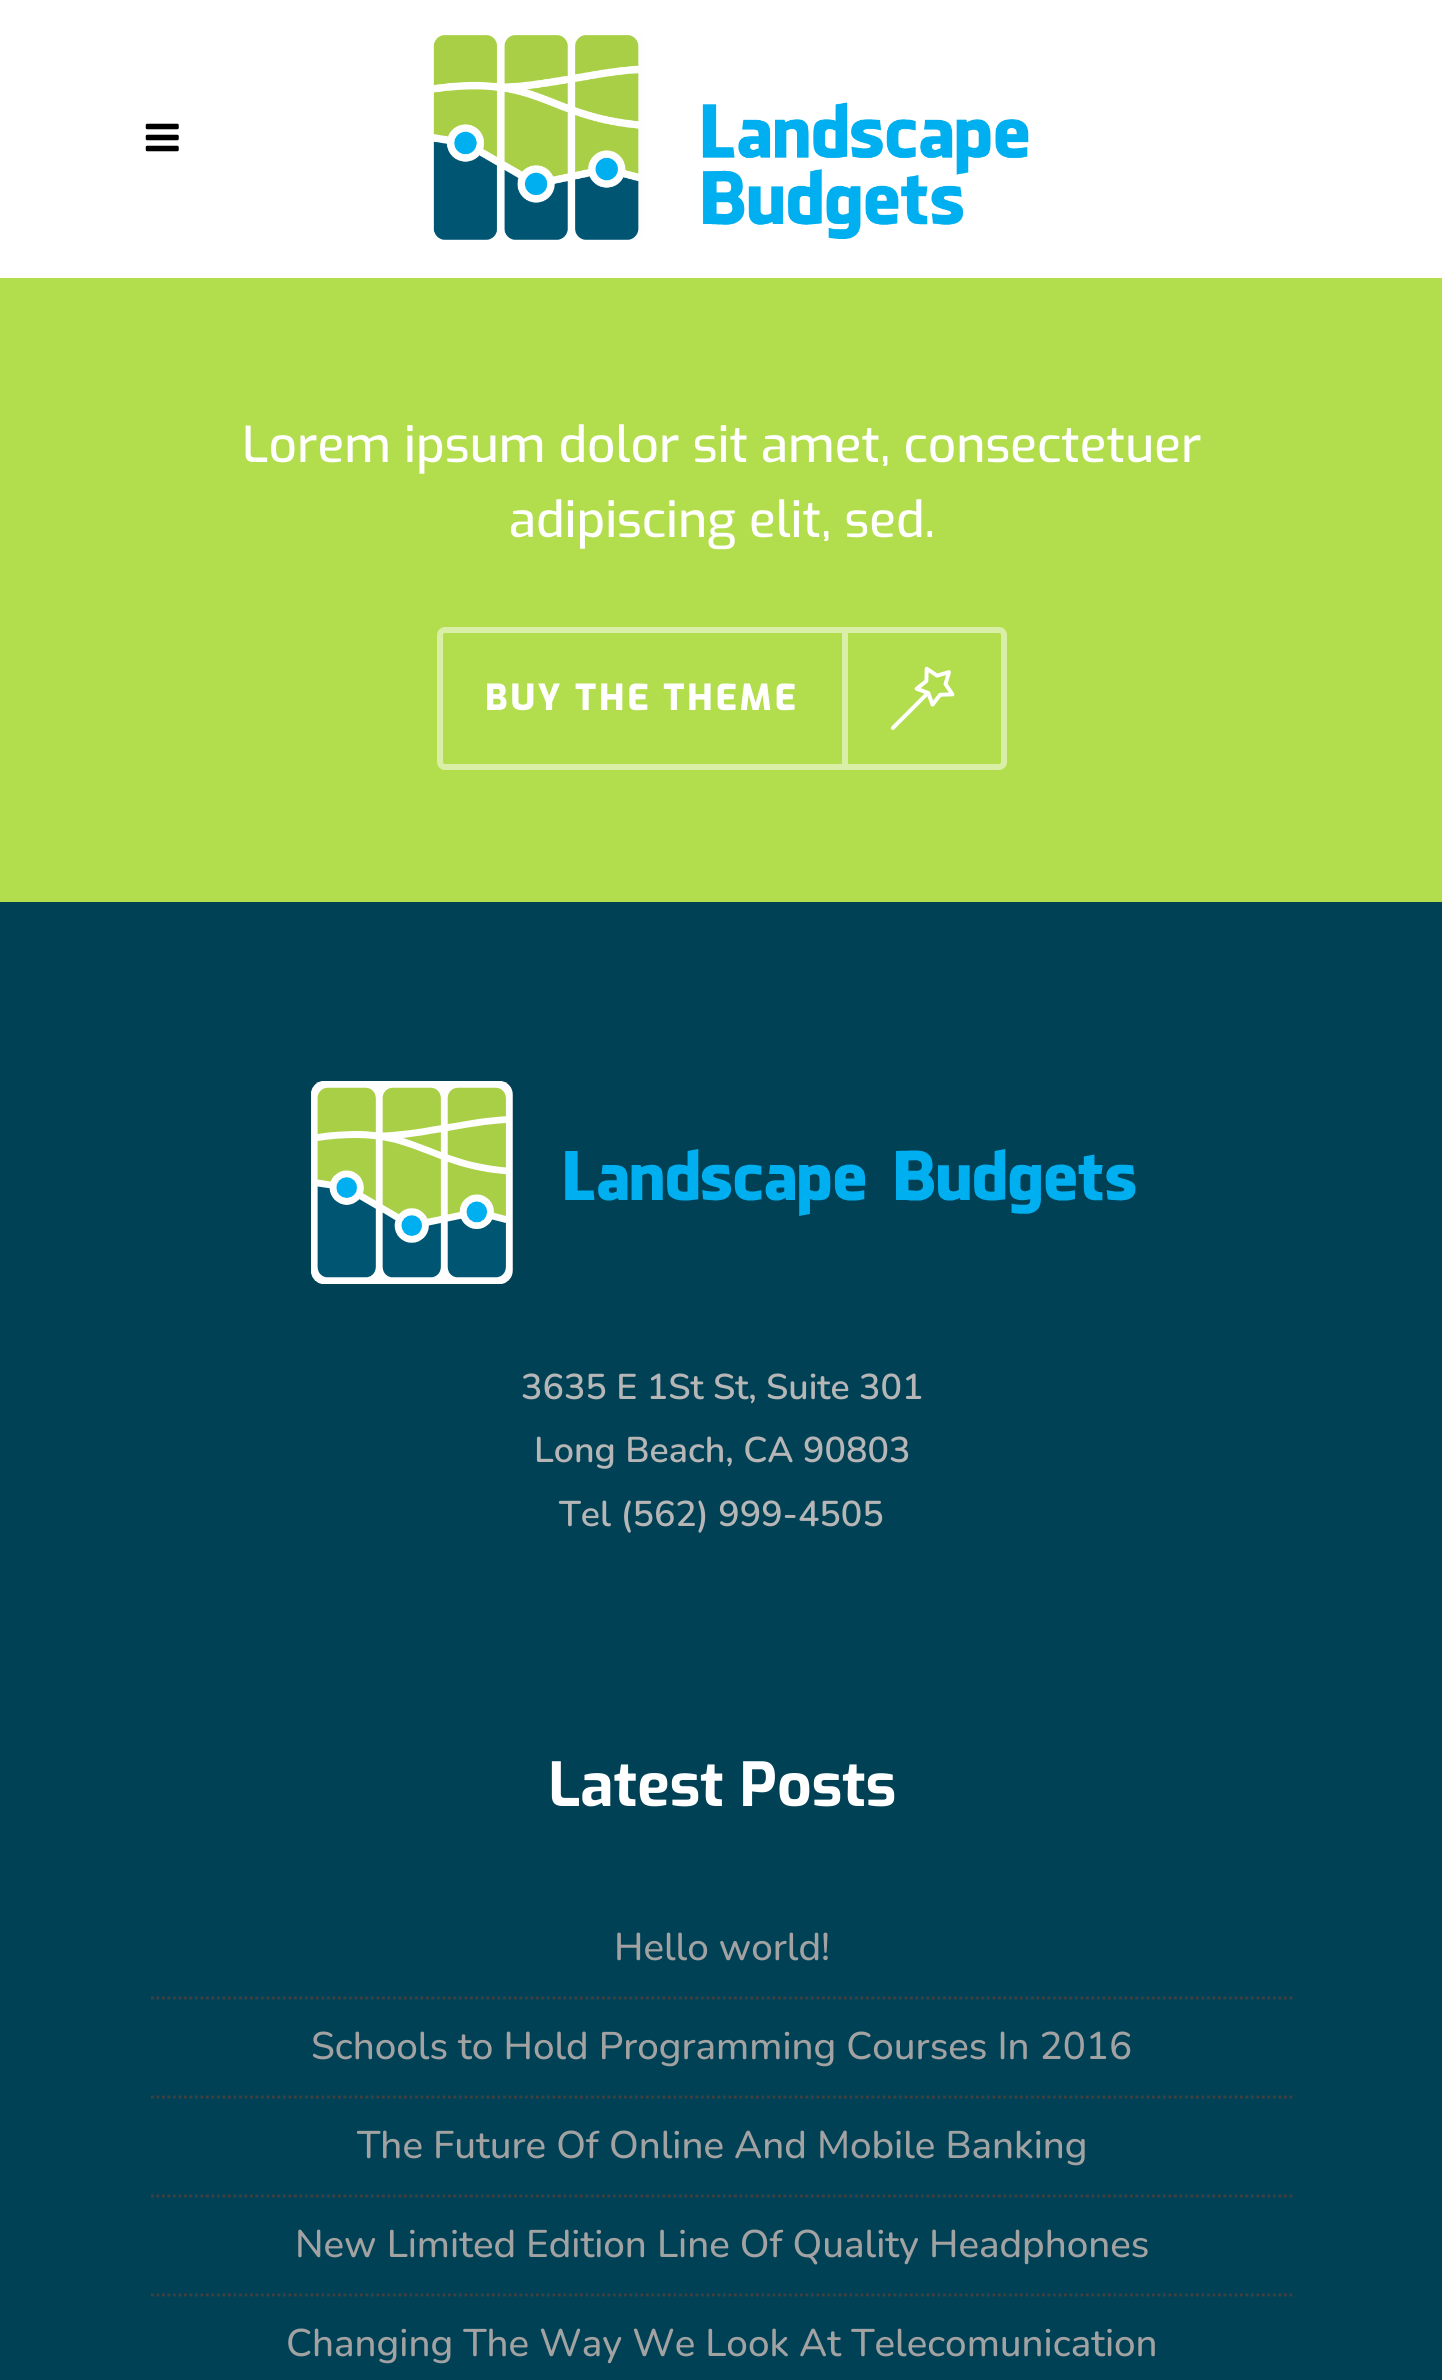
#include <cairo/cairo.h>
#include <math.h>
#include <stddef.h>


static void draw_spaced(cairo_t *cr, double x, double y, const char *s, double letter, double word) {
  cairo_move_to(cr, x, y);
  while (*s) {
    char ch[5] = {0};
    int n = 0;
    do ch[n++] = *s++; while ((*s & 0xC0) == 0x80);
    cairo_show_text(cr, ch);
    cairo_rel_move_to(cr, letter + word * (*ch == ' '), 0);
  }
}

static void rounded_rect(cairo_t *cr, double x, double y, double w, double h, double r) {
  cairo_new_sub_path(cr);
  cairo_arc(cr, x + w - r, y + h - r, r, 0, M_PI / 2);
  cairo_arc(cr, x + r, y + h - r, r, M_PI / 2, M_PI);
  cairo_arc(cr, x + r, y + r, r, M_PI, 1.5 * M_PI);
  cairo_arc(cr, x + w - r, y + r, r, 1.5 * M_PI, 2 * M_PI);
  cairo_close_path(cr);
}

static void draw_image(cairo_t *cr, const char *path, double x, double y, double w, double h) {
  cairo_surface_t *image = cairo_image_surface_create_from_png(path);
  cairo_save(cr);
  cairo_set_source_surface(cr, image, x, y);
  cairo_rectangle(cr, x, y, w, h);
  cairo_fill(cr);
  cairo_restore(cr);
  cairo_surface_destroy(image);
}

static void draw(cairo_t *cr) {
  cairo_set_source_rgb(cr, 1, 1, 1);
  cairo_paint(cr);
  draw_image(cr, "images/1.png", 145, 123, 34, 29);
  draw_image(cr, "images/2.png", 433, 35, 596, 205);
  cairo_set_source_rgb(cr, 1, 254 / 255.0, 249 / 255.0);
  cairo_rectangle(cr, 0, 275, 1442, 3);
  cairo_fill(cr);
  cairo_set_source_rgb(cr, 178 / 255.0, 221 / 255.0, 76 / 255.0);
  cairo_rectangle(cr, 0, 278, 1442, 624);
  cairo_fill(cr);
  rounded_rect(cr, 440, 630, 564, 137, 5);
  cairo_set_source_rgb(cr, 217 / 255.0, 238 / 255.0, 166 / 255.0);
  cairo_set_line_width(cr, 6);
  cairo_stroke(cr);
  cairo_rectangle(cr, 842, 633, 6, 132);
  cairo_fill(cr);
  draw_image(cr, "images/3.png", 890, 666, 65, 64);
  cairo_set_source_rgb(cr, 1 / 255.0, 65 / 255.0, 86 / 255.0);
  cairo_rectangle(cr, 0, 902, 1442, 1478);
  cairo_fill(cr);
  draw_image(cr, "images/4.png", 311, 1081, 825, 203);
  cairo_new_path(cr);
  cairo_move_to(cr, 151, 1998);
  cairo_line_to(cr, 1292.5, 1998);
  cairo_set_source_rgb(cr, 64 / 255.0, 64 / 255.0, 64 / 255.0);
  cairo_set_line_width(cr, 2.8);
  cairo_set_dash(cr, (double[]){2.75, 2.75}, 2, 0);
  cairo_stroke(cr);
  cairo_new_path(cr);
  cairo_move_to(cr, 151, 2097);
  cairo_line_to(cr, 1292.5, 2097);
  cairo_stroke(cr);
  cairo_new_path(cr);
  cairo_move_to(cr, 151, 2196);
  cairo_line_to(cr, 1292.5, 2196);
  cairo_stroke(cr);
  cairo_new_path(cr);
  cairo_move_to(cr, 151, 2295);
  cairo_line_to(cr, 1292.5, 2295);
  cairo_stroke(cr);
  cairo_select_font_face(cr, "Exo Medium", CAIRO_FONT_SLANT_NORMAL, CAIRO_FONT_WEIGHT_NORMAL);
  cairo_set_font_size(cr, 49.5);
  cairo_set_source_rgb(cr, 1, 1, 1);
  cairo_move_to(cr, 242, 462);
  cairo_show_text(cr, "Lorem ipsum dolor sit amet, consectetuer");
  cairo_move_to(cr, 509, 537);
  cairo_show_text(cr, "adipiscing elit, sed.");
  cairo_select_font_face(cr, "Exo ExtraBold", CAIRO_FONT_SLANT_NORMAL, CAIRO_FONT_WEIGHT_NORMAL);
  cairo_set_font_size(cr, 35.75);
  draw_spaced(cr, 485, 710, "BUY THE THEME", 2.75, 0);
  cairo_select_font_face(cr, "Nunito SemiBold", CAIRO_FONT_SLANT_NORMAL, CAIRO_FONT_WEIGHT_NORMAL);
  cairo_set_source_rgb(cr, 182 / 255.0, 182 / 255.0, 182 / 255.0);
  cairo_move_to(cr, 521, 1399);
  cairo_show_text(cr, "3635 E 1St St, Suite 301");
  cairo_move_to(cr, 534, 1462);
  cairo_show_text(cr, "Long Beach, CA 90803");
  cairo_move_to(cr, 559, 1526);
  cairo_show_text(cr, "Tel (562) 999-4505");
  cairo_select_font_face(cr, "Exo", CAIRO_FONT_SLANT_NORMAL, CAIRO_FONT_WEIGHT_BOLD);
  cairo_set_font_size(cr, 60.5);
  cairo_set_source_rgb(cr, 1, 1, 1);
  cairo_move_to(cr, 548, 1806);
  cairo_show_text(cr, "Latest Posts");
  cairo_select_font_face(cr, "Nunito Medium", CAIRO_FONT_SLANT_NORMAL, CAIRO_FONT_WEIGHT_NORMAL);
  cairo_set_font_size(cr, 38.5);
  cairo_set_source_rgb(cr, 162 / 255.0, 162 / 255.0, 162 / 255.0);
  cairo_move_to(cr, 614, 1960);
  cairo_show_text(cr, "Hello world!");
  cairo_move_to(cr, 311, 2059);
  cairo_show_text(cr, "Schools to Hold Programming Courses In 2016");
  cairo_move_to(cr, 357, 2158);
  cairo_show_text(cr, "The Future Of Online And Mobile Banking");
  cairo_move_to(cr, 295, 2257);
  cairo_show_text(cr, "New Limited Edition Line Of Quality Headphones");
  cairo_move_to(cr, 286, 2356);
  cairo_show_text(cr, "Changing The Way We Look At Telecomunication");
}

int main(void) {
  cairo_surface_t *surface = cairo_image_surface_create(CAIRO_FORMAT_RGB24, 1442, 2380);
  cairo_t *cr = cairo_create(surface);
  cairo_font_options_t *options = cairo_font_options_create();
  cairo_font_options_set_hint_metrics(options, CAIRO_HINT_METRICS_OFF);
  cairo_font_options_set_hint_style(options, CAIRO_HINT_STYLE_NONE);
  cairo_set_font_options(cr, options);
  cairo_set_miter_limit(cr, 4);
  draw(cr);
  cairo_surface_write_to_png(surface, "out.png");
  cairo_font_options_destroy(options);
  cairo_destroy(cr);
  cairo_surface_destroy(surface);
  return 0;
}
